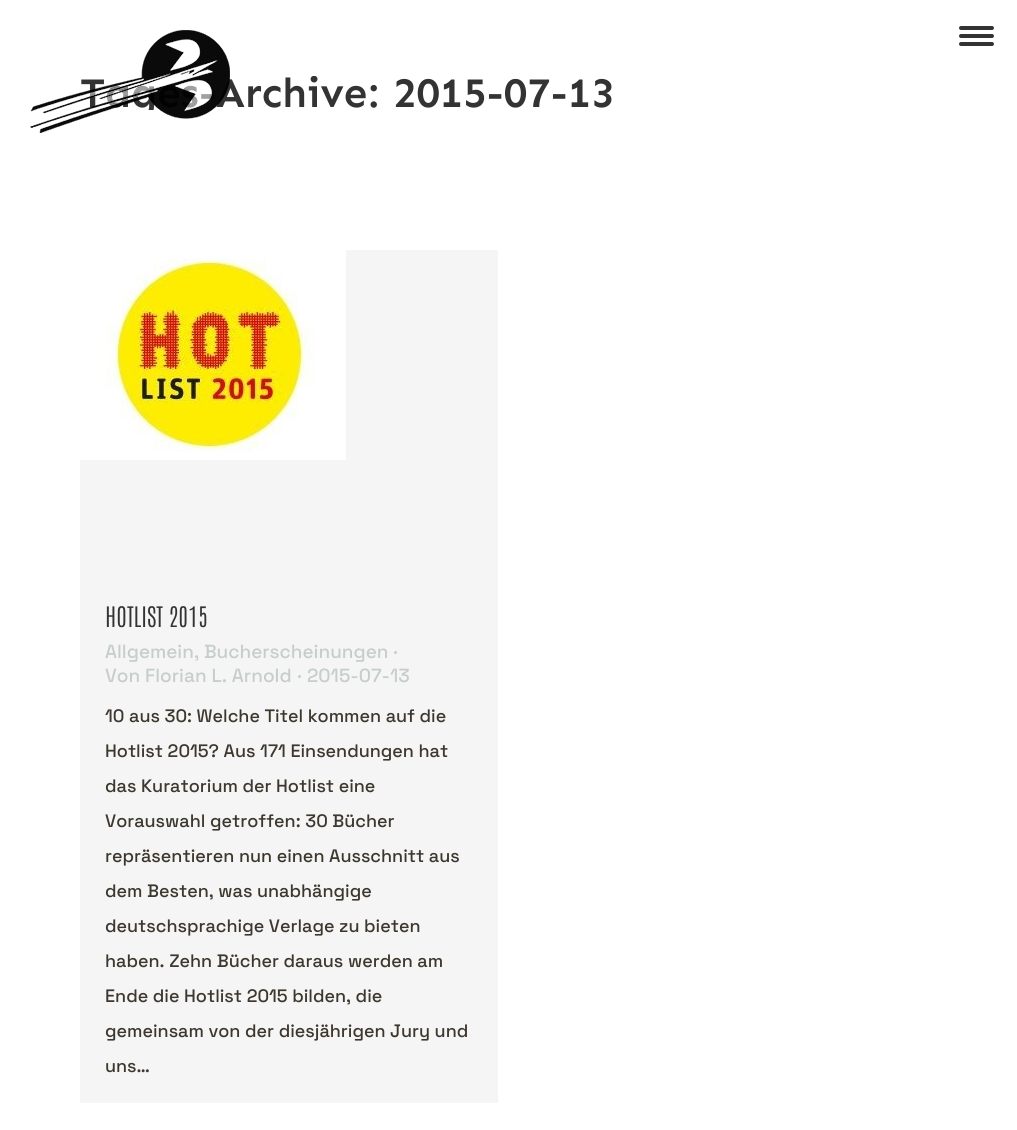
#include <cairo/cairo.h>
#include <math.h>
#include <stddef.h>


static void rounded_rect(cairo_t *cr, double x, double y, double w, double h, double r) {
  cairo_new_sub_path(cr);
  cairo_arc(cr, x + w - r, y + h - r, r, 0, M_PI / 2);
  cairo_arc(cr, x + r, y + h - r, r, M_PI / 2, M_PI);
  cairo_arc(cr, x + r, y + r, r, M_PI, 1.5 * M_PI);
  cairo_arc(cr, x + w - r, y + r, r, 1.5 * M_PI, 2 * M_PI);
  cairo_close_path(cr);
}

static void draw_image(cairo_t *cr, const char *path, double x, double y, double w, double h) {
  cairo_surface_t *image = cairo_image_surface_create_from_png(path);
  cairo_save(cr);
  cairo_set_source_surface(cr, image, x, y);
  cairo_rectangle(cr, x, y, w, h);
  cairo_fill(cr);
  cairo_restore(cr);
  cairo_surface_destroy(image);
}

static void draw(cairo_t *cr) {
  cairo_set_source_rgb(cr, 1, 1, 1);
  cairo_paint(cr);
  cairo_set_source_rgb(cr, 51 / 255.0, 51 / 255.0, 51 / 255.0);
  rounded_rect(cr, 959, 26, 35, 4, 2);
  cairo_fill(cr);
  rounded_rect(cr, 959, 34, 35, 4, 2);
  cairo_fill(cr);
  rounded_rect(cr, 959, 42, 35, 4, 2);
  cairo_fill(cr);
  cairo_set_source_rgb(cr, 245 / 255.0, 245 / 255.0, 245 / 255.0);
  cairo_rectangle(cr, 80, 250, 418, 853);
  cairo_fill(cr);
  draw_image(cr, "images/2.png", 80, 250, 266, 210);
  cairo_set_source_rgb(cr, 198 / 255.0, 206 / 255.0, 201 / 255.0);
  cairo_arc(cr, 395.5, 652.5, 1.5, 0, 2 * M_PI);
  cairo_fill(cr);
  cairo_arc(cr, 299.5, 676.5, 1.5, 0, 2 * M_PI);
  cairo_fill(cr);
  cairo_save(cr);
  cairo_rectangle(cr, 80, 76, 534, 34);
  cairo_clip(cr);
  cairo_select_font_face(cr, "Sen SemiBold", CAIRO_FONT_SLANT_NORMAL, CAIRO_FONT_WEIGHT_NORMAL);
  cairo_set_font_size(cr, 42);
  cairo_set_source_rgb(cr, 51 / 255.0, 51 / 255.0, 51 / 255.0);
  cairo_move_to(cr, 80, 107);
  cairo_show_text(cr, "Tages-Archive:");
  cairo_restore(cr);
  draw_image(cr, "images/1.png", 30, 30, 200, 103);
  cairo_select_font_face(cr, "Sen SemiBold", CAIRO_FONT_SLANT_NORMAL, CAIRO_FONT_WEIGHT_NORMAL);
  cairo_set_font_size(cr, 42);
  cairo_set_source_rgb(cr, 51 / 255.0, 51 / 255.0, 51 / 255.0);
  cairo_move_to(cr, 393, 107);
  cairo_show_text(cr, "2015-07-13");
  cairo_select_font_face(cr, "Antonio ExtraLight", CAIRO_FONT_SLANT_NORMAL, CAIRO_FONT_WEIGHT_NORMAL);
  cairo_set_font_size(cr, 24);
  cairo_move_to(cr, 105, 627);
  cairo_show_text(cr, "HOTLIST 2015");
  cairo_select_font_face(cr, "Space Grotesk Medium", CAIRO_FONT_SLANT_NORMAL, CAIRO_FONT_WEIGHT_NORMAL);
  cairo_set_font_size(cr, 19);
  cairo_set_source_rgb(cr, 198 / 255.0, 206 / 255.0, 201 / 255.0);
  cairo_move_to(cr, 105, 658);
  cairo_show_text(cr, "Allgemein, Bucherscheinungen");
  cairo_move_to(cr, 105, 682);
  cairo_show_text(cr, "Von Florian L. Arnold");
  cairo_move_to(cr, 307, 682);
  cairo_show_text(cr, "2015-07-13");
  cairo_set_font_size(cr, 18);
  cairo_set_source_rgb(cr, 61 / 255.0, 55 / 255.0, 45 / 255.0);
  cairo_move_to(cr, 105, 722);
  cairo_show_text(cr, "10 aus 30: Welche Titel kommen auf die");
  cairo_move_to(cr, 105, 757);
  cairo_show_text(cr, "Hotlist 2015? Aus 171 Einsendungen hat");
  cairo_move_to(cr, 105, 792);
  cairo_show_text(cr, "das Kuratorium der Hotlist eine");
  cairo_move_to(cr, 105, 827);
  cairo_show_text(cr, "Vorauswahl getroffen: 30 Bücher");
  cairo_move_to(cr, 105, 862);
  cairo_show_text(cr, "repräsentieren nun einen Ausschnitt aus");
  cairo_move_to(cr, 105, 897);
  cairo_show_text(cr, "dem Besten, was unabhängige");
  cairo_move_to(cr, 105, 932);
  cairo_show_text(cr, "deutschsprachige Verlage zu bieten");
  cairo_move_to(cr, 105, 967);
  cairo_show_text(cr, "haben. Zehn Bücher daraus werden am");
  cairo_move_to(cr, 105, 1002);
  cairo_show_text(cr, "Ende die Hotlist 2015 bilden, die");
  cairo_move_to(cr, 105, 1037);
  cairo_show_text(cr, "gemeinsam von der diesjährigen Jury und");
  cairo_move_to(cr, 105, 1072);
  cairo_show_text(cr, "uns…");
}

int main(void) {
  cairo_surface_t *surface = cairo_image_surface_create(CAIRO_FORMAT_RGB24, 1017, 1130);
  cairo_t *cr = cairo_create(surface);
  cairo_font_options_t *options = cairo_font_options_create();
  cairo_font_options_set_hint_metrics(options, CAIRO_HINT_METRICS_OFF);
  cairo_font_options_set_hint_style(options, CAIRO_HINT_STYLE_NONE);
  cairo_set_font_options(cr, options);
  cairo_set_miter_limit(cr, 4);
  draw(cr);
  cairo_surface_write_to_png(surface, "out.png");
  cairo_font_options_destroy(options);
  cairo_destroy(cr);
  cairo_surface_destroy(surface);
  return 0;
}
